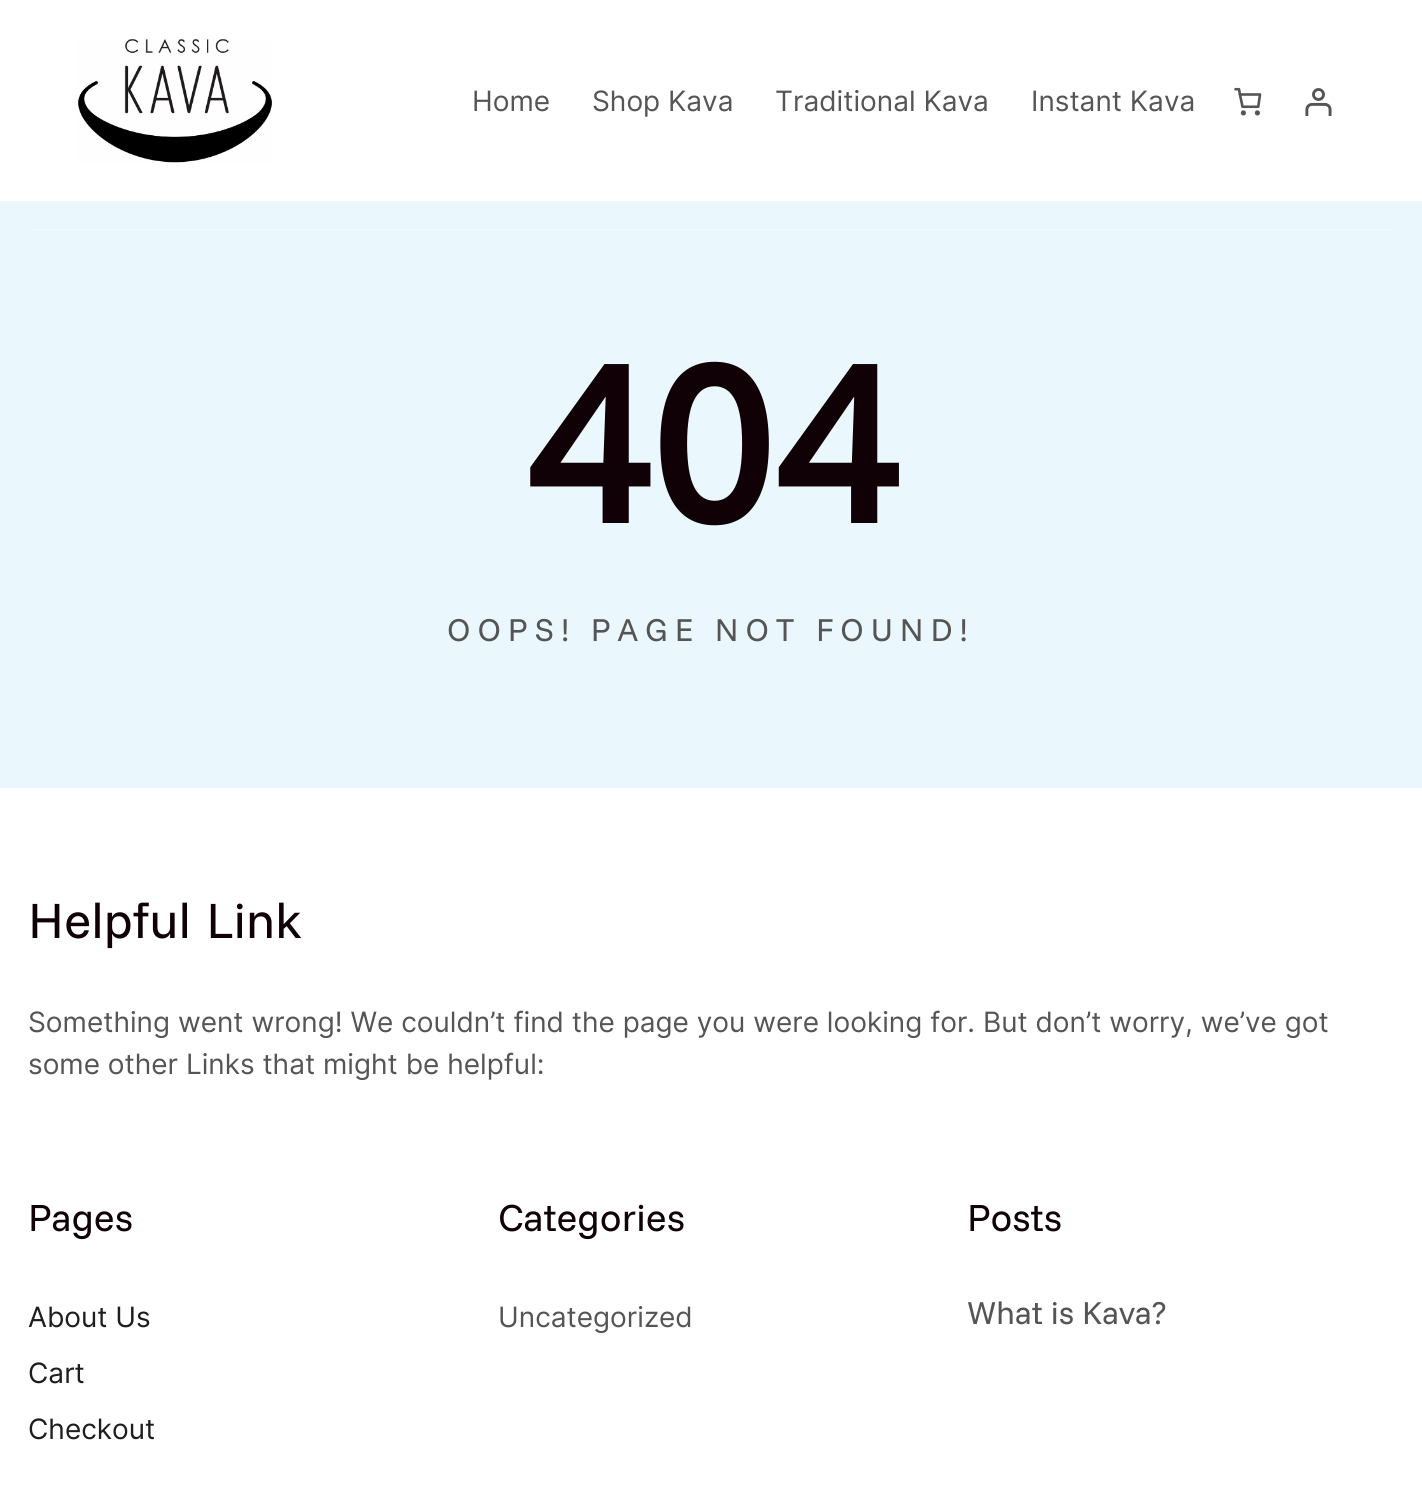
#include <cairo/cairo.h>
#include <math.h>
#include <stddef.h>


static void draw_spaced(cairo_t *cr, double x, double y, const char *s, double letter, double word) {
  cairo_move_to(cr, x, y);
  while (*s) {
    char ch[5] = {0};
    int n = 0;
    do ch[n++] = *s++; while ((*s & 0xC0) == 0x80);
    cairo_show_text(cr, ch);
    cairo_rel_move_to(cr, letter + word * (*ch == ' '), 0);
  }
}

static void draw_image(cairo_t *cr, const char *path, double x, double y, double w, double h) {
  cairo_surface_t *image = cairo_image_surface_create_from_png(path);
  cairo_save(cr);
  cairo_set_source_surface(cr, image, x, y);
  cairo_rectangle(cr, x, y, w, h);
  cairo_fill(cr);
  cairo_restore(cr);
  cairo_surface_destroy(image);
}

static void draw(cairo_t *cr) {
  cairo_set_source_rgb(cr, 1, 1, 1);
  cairo_paint(cr);
  draw_image(cr, "images/1.png", 78, 39, 195, 124);
  draw_image(cr, "images/2.png", 1234, 87, 28, 29);
  draw_image(cr, "images/3.png", 1305, 88, 27, 28);
  cairo_set_source_rgb(cr, 234 / 255.0, 248 / 255.0, 253 / 255.0);
  cairo_rectangle(cr, 0, 201, 1422, 587);
  cairo_fill(cr);
  cairo_set_source_rgb(cr, 237 / 255.0, 249 / 255.0, 253 / 255.0);
  cairo_rectangle(cr, 28, 229, 1367, 2);
  cairo_fill(cr);
  cairo_select_font_face(cr, "Inter", CAIRO_FONT_SLANT_NORMAL, CAIRO_FONT_WEIGHT_NORMAL);
  cairo_set_font_size(cr, 28);
  cairo_set_source_rgb(cr, 86 / 255.0, 85 / 255.0, 85 / 255.0);
  cairo_move_to(cr, 472, 111);
  cairo_show_text(cr, "Home");
  cairo_move_to(cr, 592, 111);
  cairo_show_text(cr, "Shop Kava");
  cairo_move_to(cr, 775, 111);
  cairo_show_text(cr, "Traditional Kava");
  cairo_move_to(cr, 1031, 111);
  cairo_show_text(cr, "Instant Kava");
  cairo_select_font_face(cr, "Funnel Sans", CAIRO_FONT_SLANT_NORMAL, CAIRO_FONT_WEIGHT_BOLD);
  cairo_set_font_size(cr, 226);
  cairo_set_source_rgb(cr, 15 / 255.0, 1 / 255.0, 6 / 255.0);
  cairo_move_to(cr, 525, 523);
  cairo_show_text(cr, "404");
  cairo_select_font_face(cr, "Funnel Sans", CAIRO_FONT_SLANT_NORMAL, CAIRO_FONT_WEIGHT_NORMAL);
  cairo_set_font_size(cr, 32.3);
  cairo_set_source_rgb(cr, 86 / 255.0, 85 / 255.0, 85 / 255.0);
  draw_spaced(cr, 447, 641, "OOPS! PAGE NOT FOUND!", 7, -0.5);
  cairo_set_font_size(cr, 50.5);
  cairo_set_source_rgb(cr, 15 / 255.0, 1 / 255.0, 6 / 255.0);
  draw_spaced(cr, 28, 938, "Helpful Link", 0, 3);
  cairo_select_font_face(cr, "Inter", CAIRO_FONT_SLANT_NORMAL, CAIRO_FONT_WEIGHT_NORMAL);
  cairo_set_font_size(cr, 28);
  cairo_set_source_rgb(cr, 86 / 255.0, 85 / 255.0, 85 / 255.0);
  cairo_move_to(cr, 28, 1032);
  cairo_show_text(cr, "Something went wrong! We couldn’t find the page you were looking for. But don’t worry, we’ve got");
  cairo_move_to(cr, 28, 1074);
  cairo_show_text(cr, "some other Links that might be helpful:");
  cairo_select_font_face(cr, "Funnel Sans", CAIRO_FONT_SLANT_NORMAL, CAIRO_FONT_WEIGHT_NORMAL);
  cairo_set_font_size(cr, 38.5);
  cairo_set_source_rgb(cr, 15 / 255.0, 1 / 255.0, 6 / 255.0);
  cairo_move_to(cr, 28, 1231);
  cairo_show_text(cr, "Pages");
  cairo_select_font_face(cr, "Inter", CAIRO_FONT_SLANT_NORMAL, CAIRO_FONT_WEIGHT_NORMAL);
  cairo_set_font_size(cr, 28);
  cairo_set_source_rgb(cr, 30 / 255.0, 30 / 255.0, 30 / 255.0);
  cairo_move_to(cr, 28, 1327);
  cairo_show_text(cr, "About Us");
  cairo_move_to(cr, 28, 1383);
  cairo_show_text(cr, "Cart");
  cairo_move_to(cr, 28, 1439);
  cairo_show_text(cr, "Checkout");
  cairo_select_font_face(cr, "Funnel Sans", CAIRO_FONT_SLANT_NORMAL, CAIRO_FONT_WEIGHT_NORMAL);
  cairo_set_font_size(cr, 38.5);
  cairo_set_source_rgb(cr, 15 / 255.0, 1 / 255.0, 6 / 255.0);
  cairo_move_to(cr, 498, 1231);
  cairo_show_text(cr, "Categories");
  cairo_select_font_face(cr, "Inter", CAIRO_FONT_SLANT_NORMAL, CAIRO_FONT_WEIGHT_NORMAL);
  cairo_set_font_size(cr, 28);
  cairo_set_source_rgb(cr, 86 / 255.0, 85 / 255.0, 85 / 255.0);
  cairo_move_to(cr, 498, 1327);
  cairo_show_text(cr, "Uncategorized");
  cairo_select_font_face(cr, "Funnel Sans", CAIRO_FONT_SLANT_NORMAL, CAIRO_FONT_WEIGHT_NORMAL);
  cairo_set_font_size(cr, 38.5);
  cairo_set_source_rgb(cr, 15 / 255.0, 1 / 255.0, 6 / 255.0);
  cairo_move_to(cr, 967, 1231);
  cairo_show_text(cr, "Posts");
  cairo_set_font_size(cr, 32.3);
  cairo_set_source_rgb(cr, 86 / 255.0, 85 / 255.0, 85 / 255.0);
  cairo_move_to(cr, 967, 1324);
  cairo_show_text(cr, "What is Kava?");
}

int main(void) {
  cairo_surface_t *surface = cairo_image_surface_create(CAIRO_FORMAT_RGB24, 1422, 1485);
  cairo_t *cr = cairo_create(surface);
  cairo_font_options_t *options = cairo_font_options_create();
  cairo_font_options_set_hint_metrics(options, CAIRO_HINT_METRICS_OFF);
  cairo_font_options_set_hint_style(options, CAIRO_HINT_STYLE_NONE);
  cairo_set_font_options(cr, options);
  cairo_set_miter_limit(cr, 4);
  draw(cr);
  cairo_surface_write_to_png(surface, "out.png");
  cairo_font_options_destroy(options);
  cairo_destroy(cr);
  cairo_surface_destroy(surface);
  return 0;
}
